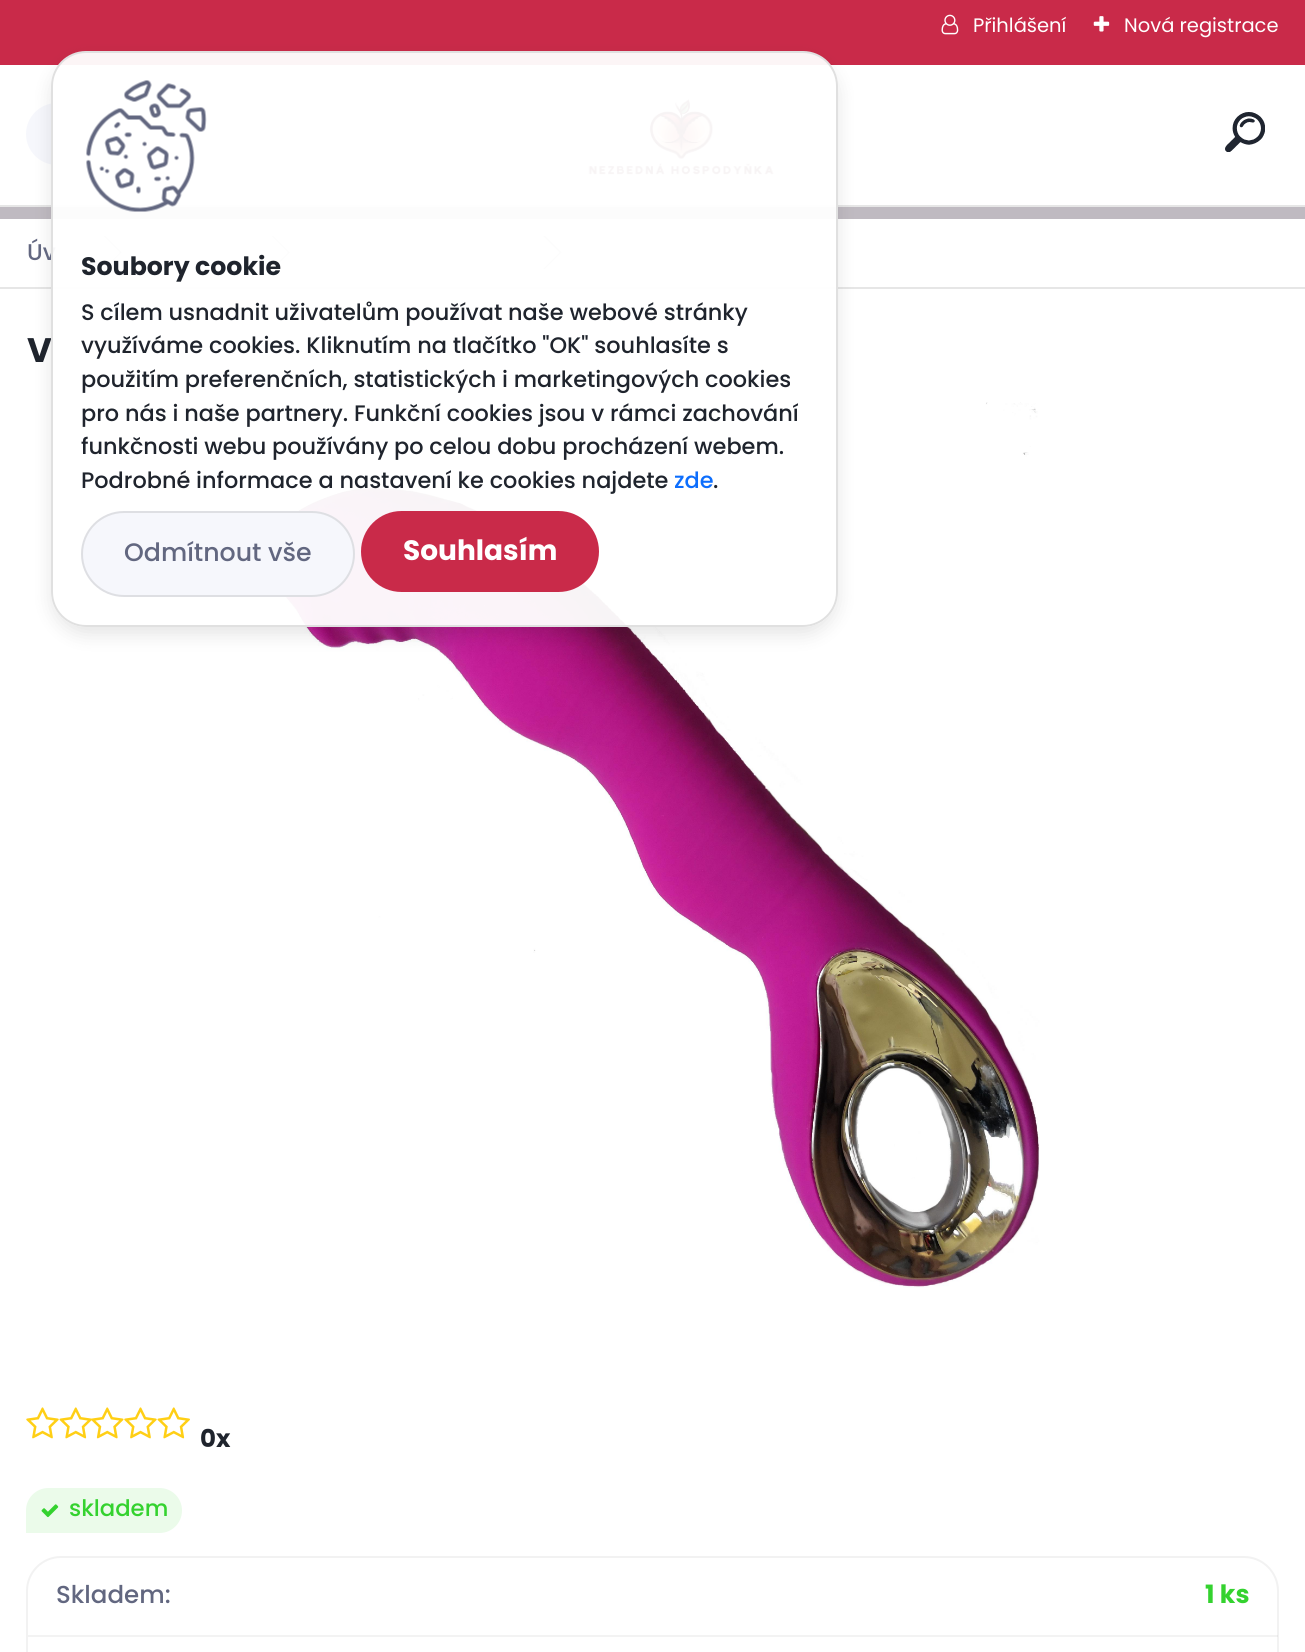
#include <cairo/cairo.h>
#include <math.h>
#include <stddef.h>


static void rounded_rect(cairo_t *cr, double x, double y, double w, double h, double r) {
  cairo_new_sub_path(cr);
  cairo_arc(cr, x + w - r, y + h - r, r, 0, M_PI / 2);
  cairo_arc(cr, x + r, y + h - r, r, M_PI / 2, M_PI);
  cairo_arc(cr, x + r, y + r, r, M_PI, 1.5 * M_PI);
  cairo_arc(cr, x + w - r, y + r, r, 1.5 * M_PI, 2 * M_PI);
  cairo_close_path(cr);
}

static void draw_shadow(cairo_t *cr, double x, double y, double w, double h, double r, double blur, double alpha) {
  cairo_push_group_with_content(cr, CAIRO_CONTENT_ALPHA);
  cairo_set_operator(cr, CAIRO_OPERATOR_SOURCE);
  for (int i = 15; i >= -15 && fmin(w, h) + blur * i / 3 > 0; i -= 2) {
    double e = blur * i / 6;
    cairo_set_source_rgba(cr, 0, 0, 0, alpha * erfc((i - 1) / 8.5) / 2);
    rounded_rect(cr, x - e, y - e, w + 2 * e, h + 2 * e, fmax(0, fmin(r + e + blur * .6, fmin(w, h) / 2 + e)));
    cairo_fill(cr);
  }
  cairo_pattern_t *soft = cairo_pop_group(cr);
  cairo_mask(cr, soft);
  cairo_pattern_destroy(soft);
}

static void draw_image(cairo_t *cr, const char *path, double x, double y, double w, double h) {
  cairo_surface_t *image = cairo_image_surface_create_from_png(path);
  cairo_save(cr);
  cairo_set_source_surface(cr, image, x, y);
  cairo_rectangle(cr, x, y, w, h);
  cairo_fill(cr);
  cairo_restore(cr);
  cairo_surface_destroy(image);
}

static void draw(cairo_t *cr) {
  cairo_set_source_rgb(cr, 1, 1, 1);
  cairo_paint(cr);
  cairo_set_source_rgb(cr, 201 / 255.0, 42 / 255.0, 73 / 255.0);
  cairo_rectangle(cr, 0, 0, 1305, 65);
  cairo_fill(cr);
  draw_image(cr, "images/1.png", 941, 14, 18, 21);
  draw_image(cr, "images/2.png", 1093, 16, 17, 16);
  cairo_set_source_rgb(cr, 191 / 255.0, 186 / 255.0, 193 / 255.0);
  cairo_rectangle(cr, 0, 207, 1305, 12);
  cairo_fill(cr);
  cairo_set_source_rgb(cr, 230 / 255.0, 230 / 255.0, 230 / 255.0);
  cairo_rectangle(cr, 0, 205, 1305, 2);
  cairo_fill(cr);
  cairo_set_source_rgb(cr, 246 / 255.0, 247 / 255.0, 252 / 255.0);
  rounded_rect(cr, 26, 103, 126, 62, 31);
  cairo_fill(cr);
  draw_image(cr, "images/3.png", 588, 99, 186, 76);
  draw_image(cr, "images/4.png", 1225, 112, 40, 40);
  cairo_set_source_rgb(cr, 230 / 255.0, 230 / 255.0, 230 / 255.0);
  cairo_rectangle(cr, 0, 287, 1305, 2);
  cairo_fill(cr);
  cairo_set_source_rgb(cr, 195 / 255.0, 195 / 255.0, 195 / 255.0);
  cairo_new_path(cr);
  cairo_move_to(cr, 103.5, 236);
  cairo_line_to(cr, 105, 236);
  cairo_line_to(cr, 121.5, 252.5);
  cairo_line_to(cr, 120, 252.5);
  cairo_close_path(cr);
  cairo_fill(cr);
  cairo_set_source_rgba(cr, 55 / 255.0, 55 / 255.0, 55 / 255.0, 0.3);
  cairo_new_path(cr);
  cairo_move_to(cr, 120, 252.5);
  cairo_line_to(cr, 121.5, 252.5);
  cairo_line_to(cr, 105, 269);
  cairo_line_to(cr, 103.5, 269);
  cairo_close_path(cr);
  cairo_fill(cr);
  cairo_set_source_rgb(cr, 195 / 255.0, 195 / 255.0, 195 / 255.0);
  cairo_new_path(cr);
  cairo_move_to(cr, 271.5, 236);
  cairo_line_to(cr, 273.5, 236);
  cairo_line_to(cr, 290, 252.5);
  cairo_line_to(cr, 288, 252.5);
  cairo_close_path(cr);
  cairo_fill(cr);
  cairo_set_source_rgba(cr, 55 / 255.0, 55 / 255.0, 55 / 255.0, 0.3);
  cairo_new_path(cr);
  cairo_move_to(cr, 288, 252.5);
  cairo_line_to(cr, 290, 252.5);
  cairo_line_to(cr, 273.5, 269);
  cairo_line_to(cr, 271.5, 269);
  cairo_close_path(cr);
  cairo_fill(cr);
  cairo_set_source_rgb(cr, 195 / 255.0, 195 / 255.0, 195 / 255.0);
  cairo_new_path(cr);
  cairo_move_to(cr, 543, 236);
  cairo_line_to(cr, 545, 236);
  cairo_line_to(cr, 561.5, 252.5);
  cairo_line_to(cr, 559.5, 252.5);
  cairo_close_path(cr);
  cairo_fill(cr);
  cairo_new_path(cr);
  cairo_move_to(cr, 559.5, 252.5);
  cairo_line_to(cr, 561.5, 252.5);
  cairo_line_to(cr, 545, 269);
  cairo_line_to(cr, 543, 269);
  cairo_close_path(cr);
  cairo_fill(cr);
  draw_image(cr, "images/5.png", 263, 402, 777, 886);
  draw_image(cr, "images/6.png", 26, 1407, 33, 32);
  draw_image(cr, "images/7.png", 59, 1407, 33, 32);
  draw_image(cr, "images/8.png", 91, 1407, 33, 32);
  draw_image(cr, "images/6.png", 124, 1407, 33, 32);
  draw_image(cr, "images/7.png", 157, 1407, 33, 32);
  cairo_set_source_rgb(cr, 235 / 255.0, 251 / 255.0, 234 / 255.0);
  cairo_new_path(cr);
  cairo_move_to(cr, 48.5, 1488);
  cairo_line_to(cr, 159.5, 1488);
  cairo_curve_to(cr, 172, 1488, 182, 1498, 182, 1510.5);
  cairo_curve_to(cr, 182, 1523, 172, 1533, 159.5, 1533);
  cairo_line_to(cr, 26, 1533);
  cairo_line_to(cr, 26, 1510.5);
  cairo_curve_to(cr, 26, 1498, 36, 1488, 48.5, 1488);
  cairo_close_path(cr);
  cairo_fill(cr);
  draw_image(cr, "images/9.png", 41, 1504, 18, 14);
  rounded_rect(cr, 27, 1557, 1251, 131, 34);
  cairo_set_source_rgb(cr, 242 / 255.0, 242 / 255.0, 242 / 255.0);
  cairo_stroke(cr);
  cairo_set_source_rgba(cr, 0, 0, 0, 0.05);
  cairo_rectangle(cr, 28, 1635, 1250, 2);
  cairo_fill(cr);
  cairo_save(cr);
  cairo_set_fill_rule(cr, CAIRO_FILL_RULE_EVEN_ODD);
  cairo_new_path(cr);
  cairo_move_to(cr, 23, 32);
  cairo_line_to(cr, 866, 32);
  cairo_line_to(cr, 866, 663);
  cairo_line_to(cr, 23, 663);
  cairo_close_path(cr);
  cairo_move_to(cr, 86, 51);
  cairo_line_to(cr, 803, 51);
  cairo_curve_to(cr, 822.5, 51, 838, 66.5, 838, 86);
  cairo_line_to(cr, 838, 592);
  cairo_curve_to(cr, 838, 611.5, 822.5, 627, 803, 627);
  cairo_line_to(cr, 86, 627);
  cairo_curve_to(cr, 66.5, 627, 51, 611.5, 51, 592);
  cairo_line_to(cr, 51, 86);
  cairo_curve_to(cr, 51, 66.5, 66.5, 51, 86, 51);
  cairo_close_path(cr);
  cairo_clip(cr);
  cairo_set_source_rgb(cr, 0, 0, 0);
  draw_shadow(cr, 51, 60, 787, 575, 35, 9, 0.1);
  cairo_restore(cr);
  cairo_select_font_face(cr, "Poppins", CAIRO_FONT_SLANT_NORMAL, CAIRO_FONT_WEIGHT_NORMAL);
  cairo_set_font_size(cr, 19.5);
  cairo_set_source_rgb(cr, 1, 1, 1);
  cairo_move_to(cr, 973, 32);
  cairo_show_text(cr, "Přihlášení");
  cairo_move_to(cr, 1124, 32);
  cairo_show_text(cr, "Nová registrace");
  cairo_select_font_face(cr, "Poppins Medium", CAIRO_FONT_SLANT_NORMAL, CAIRO_FONT_WEIGHT_NORMAL);
  cairo_set_font_size(cr, 22.75);
  cairo_set_source_rgb(cr, 98 / 255.0, 103 / 255.0, 128 / 255.0);
  cairo_move_to(cr, 27, 260);
  cairo_show_text(cr, "Úv");
  cairo_select_font_face(cr, "Poppins", CAIRO_FONT_SLANT_NORMAL, CAIRO_FONT_WEIGHT_BOLD);
  cairo_set_font_size(cr, 34);
  cairo_set_source_rgb(cr, 31 / 255.0, 36 / 255.0, 45 / 255.0);
  cairo_move_to(cr, 27, 362);
  cairo_show_text(cr, "V");
  cairo_set_font_size(cr, 24.5);
  cairo_move_to(cr, 200, 1447);
  cairo_show_text(cr, "0x");
  cairo_select_font_face(cr, "Poppins Medium", CAIRO_FONT_SLANT_NORMAL, CAIRO_FONT_WEIGHT_NORMAL);
  cairo_set_font_size(cr, 22.75);
  cairo_set_source_rgb(cr, 52 / 255.0, 210 / 255.0, 47 / 255.0);
  cairo_move_to(cr, 69, 1516);
  cairo_show_text(cr, "skladem");
  cairo_set_font_size(cr, 24.5);
  cairo_set_source_rgb(cr, 98 / 255.0, 103 / 255.0, 128 / 255.0);
  cairo_move_to(cr, 56, 1603);
  cairo_show_text(cr, "Skladem:");
  cairo_select_font_face(cr, "Poppins", CAIRO_FONT_SLANT_NORMAL, CAIRO_FONT_WEIGHT_BOLD);
  cairo_set_font_size(cr, 25.25);
  cairo_set_source_rgb(cr, 52 / 255.0, 210 / 255.0, 47 / 255.0);
  cairo_move_to(cr, 1205, 1603);
  cairo_show_text(cr, "1 ks");
  cairo_set_source_rgba(cr, 1, 1, 1, 0.95);
  rounded_rect(cr, 52, 52, 785, 574, 34);
  cairo_fill_preserve(cr);
  cairo_set_source_rgb(cr, 224 / 255.0, 224 / 255.0, 224 / 255.0);
  cairo_stroke(cr);
  draw_image(cr, "images/10.png", 86, 80, 121, 132);
  cairo_set_source_rgb(cr, 31 / 255.0, 36 / 255.0, 45 / 255.0);
  cairo_move_to(cr, 81, 275);
  cairo_show_text(cr, "Soubory cookie");
  cairo_select_font_face(cr, "Poppins Medium", CAIRO_FONT_SLANT_NORMAL, CAIRO_FONT_WEIGHT_NORMAL);
  cairo_set_font_size(cr, 22.4);
  cairo_move_to(cr, 81, 320);
  cairo_show_text(cr, "S cílem usnadnit uživatelům používat naše webové stránky");
  cairo_move_to(cr, 81, 353);
  cairo_show_text(cr, "využíváme cookies. Kliknutím na tlačítko \"OK\" souhlasíte s");
  cairo_move_to(cr, 81, 387);
  cairo_show_text(cr, "použitím preferenčních, statistických i marketingových cookies");
  cairo_move_to(cr, 81, 421);
  cairo_show_text(cr, "pro nás i naše partnery. Funkční cookies jsou v rámci zachování");
  cairo_move_to(cr, 81, 454);
  cairo_show_text(cr, "funkčnosti webu používány po celou dobu procházení webem.");
  cairo_move_to(cr, 81, 488);
  cairo_show_text(cr, "Podrobné informace a nastavení ke cookies najdete");
  cairo_set_source_rgb(cr, 13 / 255.0, 110 / 255.0, 253 / 255.0);
  cairo_move_to(cr, 674, 488);
  cairo_show_text(cr, "zde");
  cairo_set_source_rgb(cr, 31 / 255.0, 36 / 255.0, 45 / 255.0);
  cairo_move_to(cr, 713, 488);
  cairo_show_text(cr, ".");
  cairo_set_source_rgb(cr, 246 / 255.0, 247 / 255.0, 252 / 255.0);
  rounded_rect(cr, 81, 511, 274, 86, 43);
  cairo_fill(cr);
  rounded_rect(cr, 82, 512, 272, 84, 42);
  cairo_set_source_rgba(cr, 0, 0, 0, 0.1);
  cairo_stroke(cr);
  cairo_set_font_size(cr, 25.25);
  cairo_set_source_rgb(cr, 98 / 255.0, 103 / 255.0, 128 / 255.0);
  cairo_move_to(cr, 124, 561);
  cairo_show_text(cr, "Odmítnout vše");
  cairo_set_source_rgb(cr, 201 / 255.0, 42 / 255.0, 73 / 255.0);
  rounded_rect(cr, 361, 511, 238, 81, 40.5);
  cairo_fill(cr);
  cairo_select_font_face(cr, "Poppins", CAIRO_FONT_SLANT_NORMAL, CAIRO_FONT_WEIGHT_BOLD);
  cairo_set_font_size(cr, 28);
  cairo_set_source_rgb(cr, 1, 1, 1);
  cairo_move_to(cr, 403, 560);
  cairo_show_text(cr, "Souhlasím");
}

int main(void) {
  cairo_surface_t *surface = cairo_image_surface_create(CAIRO_FORMAT_RGB24, 1305, 1652);
  cairo_t *cr = cairo_create(surface);
  cairo_font_options_t *options = cairo_font_options_create();
  cairo_font_options_set_hint_metrics(options, CAIRO_HINT_METRICS_OFF);
  cairo_font_options_set_hint_style(options, CAIRO_HINT_STYLE_NONE);
  cairo_set_font_options(cr, options);
  cairo_set_miter_limit(cr, 4);
  draw(cr);
  cairo_surface_write_to_png(surface, "out.png");
  cairo_font_options_destroy(options);
  cairo_destroy(cr);
  cairo_surface_destroy(surface);
  return 0;
}
